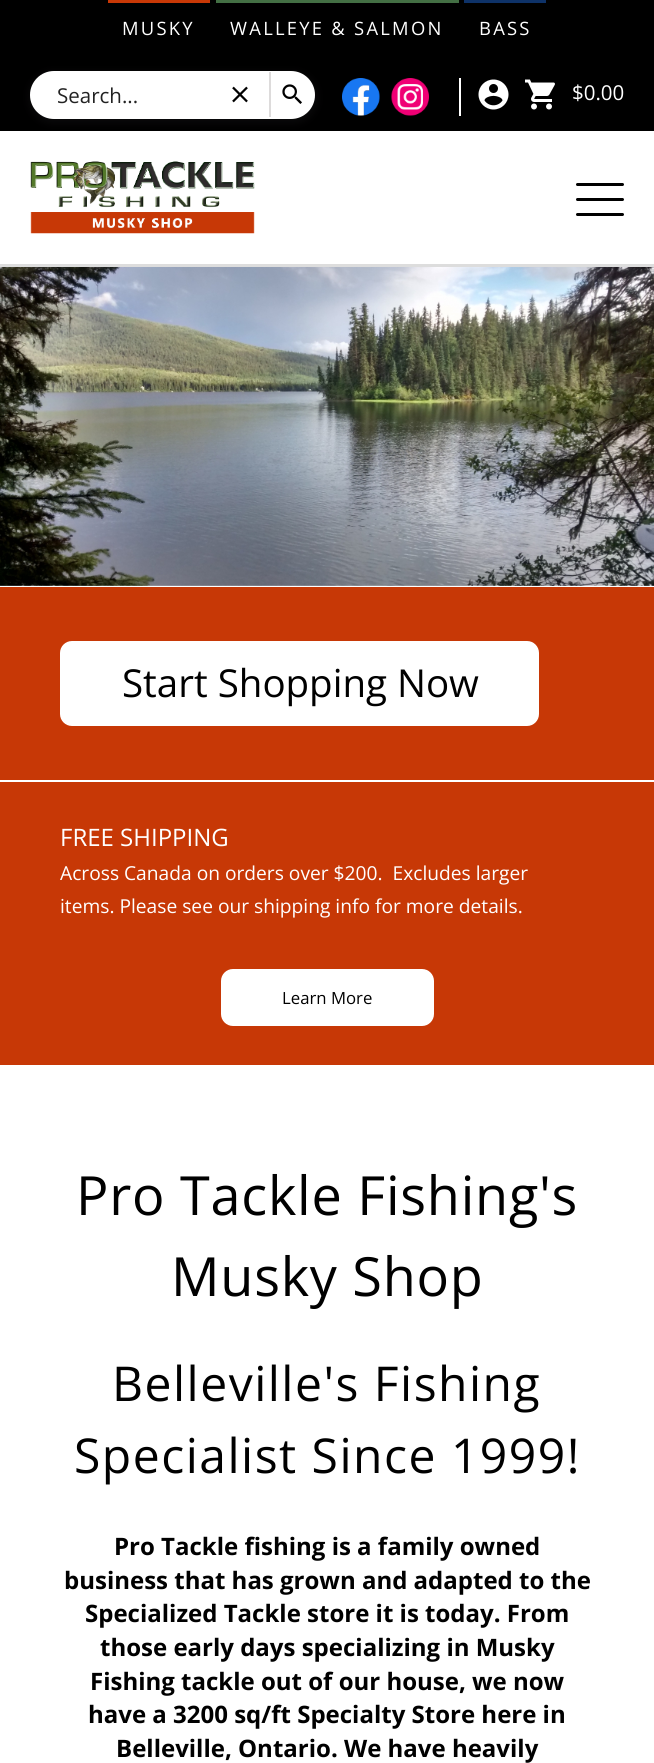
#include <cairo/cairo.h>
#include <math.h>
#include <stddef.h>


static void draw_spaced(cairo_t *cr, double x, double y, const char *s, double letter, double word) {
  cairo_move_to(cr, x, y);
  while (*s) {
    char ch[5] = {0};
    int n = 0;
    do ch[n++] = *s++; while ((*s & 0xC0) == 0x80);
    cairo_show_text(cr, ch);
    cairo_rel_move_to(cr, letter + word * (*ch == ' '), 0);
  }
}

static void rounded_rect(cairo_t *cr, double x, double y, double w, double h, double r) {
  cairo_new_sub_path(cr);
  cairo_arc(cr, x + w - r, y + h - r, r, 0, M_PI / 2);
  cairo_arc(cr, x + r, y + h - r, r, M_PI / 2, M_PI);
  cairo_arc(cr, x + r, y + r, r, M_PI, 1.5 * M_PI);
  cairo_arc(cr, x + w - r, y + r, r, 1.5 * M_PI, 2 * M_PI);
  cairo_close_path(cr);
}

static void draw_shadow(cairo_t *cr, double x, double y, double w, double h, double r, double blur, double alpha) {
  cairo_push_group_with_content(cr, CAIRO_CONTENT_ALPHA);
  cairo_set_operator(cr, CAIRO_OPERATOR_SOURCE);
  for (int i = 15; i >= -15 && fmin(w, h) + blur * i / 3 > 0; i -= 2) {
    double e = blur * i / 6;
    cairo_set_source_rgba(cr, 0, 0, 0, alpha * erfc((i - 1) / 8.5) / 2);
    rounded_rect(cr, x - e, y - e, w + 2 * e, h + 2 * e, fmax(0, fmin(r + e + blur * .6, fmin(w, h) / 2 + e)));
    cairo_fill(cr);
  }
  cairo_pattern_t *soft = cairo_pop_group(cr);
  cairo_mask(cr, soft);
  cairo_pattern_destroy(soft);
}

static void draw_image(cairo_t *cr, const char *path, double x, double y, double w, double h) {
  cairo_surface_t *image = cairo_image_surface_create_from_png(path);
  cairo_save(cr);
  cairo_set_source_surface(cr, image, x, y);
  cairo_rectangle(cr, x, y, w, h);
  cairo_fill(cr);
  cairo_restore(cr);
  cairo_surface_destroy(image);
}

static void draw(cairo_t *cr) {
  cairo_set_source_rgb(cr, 1, 1, 1);
  cairo_paint(cr);
  cairo_set_source_rgb(cr, 0, 0, 0);
  cairo_rectangle(cr, 0, 0, 654, 131);
  cairo_fill(cr);
  cairo_set_source_rgb(cr, 199 / 255.0, 56 / 255.0, 6 / 255.0);
  cairo_rectangle(cr, 108, 0, 102, 3);
  cairo_fill(cr);
  cairo_set_source_rgb(cr, 67 / 255.0, 111 / 255.0, 68 / 255.0);
  cairo_rectangle(cr, 216, 0, 243, 3);
  cairo_fill(cr);
  cairo_set_source_rgb(cr, 14 / 255.0, 50 / 255.0, 104 / 255.0);
  cairo_rectangle(cr, 464, 0, 82, 3);
  cairo_fill(cr);
  cairo_set_source_rgb(cr, 64 / 255.0, 60 / 255.0, 67 / 255.0);
  draw_shadow(cr, 29, 72, 288, 51, 25.5, 4, 0.16);
  cairo_set_source_rgb(cr, 1, 1, 1);
  rounded_rect(cr, 30, 71, 285, 48, 24);
  cairo_fill(cr);
  draw_image(cr, "images/1.png", 232, 86, 16, 17);
  cairo_set_source_rgb(cr, 221 / 255.0, 219 / 255.0, 219 / 255.0);
  cairo_rectangle(cr, 269, 72, 2, 45);
  cairo_fill(cr);
  draw_image(cr, "images/2.png", 282, 84, 20, 20);
  cairo_set_source_rgb(cr, 1, 1, 1);
  cairo_rectangle(cr, 459, 78, 2, 38);
  cairo_fill(cr);
  draw_image(cr, "images/3.png", 342, 78, 38, 38);
  draw_image(cr, "images/4.png", 391, 78, 38, 38);
  draw_image(cr, "images/5.png", 478, 79, 31, 31);
  draw_image(cr, "images/6.png", 525, 79, 30, 31);
  cairo_set_source_rgb(cr, 221 / 255.0, 221 / 255.0, 221 / 255.0);
  cairo_rectangle(cr, 0, 264, 654, 3);
  cairo_fill(cr);
  draw_image(cr, "images/7.png", 30, 161, 225, 73);
  cairo_set_source_rgb(cr, 0, 0, 0);
  rounded_rect(cr, 576, 198, 48, 3, 1.5);
  cairo_fill(cr);
  rounded_rect(cr, 576, 183, 48, 3, 1.5);
  cairo_fill(cr);
  rounded_rect(cr, 576, 213, 48, 3, 1.5);
  cairo_fill(cr);
  draw_image(cr, "images/8.png", 0, 267, 654, 319);
  cairo_set_source_rgb(cr, 199 / 255.0, 56 / 255.0, 6 / 255.0);
  cairo_rectangle(cr, 0, 587, 654, 193);
  cairo_fill(cr);
  cairo_set_source_rgb(cr, 1, 1, 1);
  rounded_rect(cr, 61, 642, 477, 83, 11);
  cairo_fill_preserve(cr);
  cairo_stroke(cr);
  cairo_set_source_rgb(cr, 199 / 255.0, 56 / 255.0, 6 / 255.0);
  cairo_rectangle(cr, 0, 782, 654, 283);
  cairo_fill(cr);
  cairo_set_source_rgb(cr, 1, 1, 1);
  rounded_rect(cr, 222, 970, 211, 55, 11);
  cairo_fill_preserve(cr);
  cairo_stroke(cr);
  cairo_select_font_face(cr, "Open Sans", CAIRO_FONT_SLANT_NORMAL, CAIRO_FONT_WEIGHT_NORMAL);
  cairo_set_font_size(cr, 18.4);
  draw_spaced(cr, 122, 35, "MUSKY", 2.25, 0);
  draw_spaced(cr, 230, 35, "WALLEYE & SALMON", 2.25, 0);
  draw_spaced(cr, 479, 35, "BASS", 2.25, 0);
  cairo_set_font_size(cr, 20.5);
  cairo_set_source_rgb(cr, 34 / 255.0, 34 / 255.0, 34 / 255.0);
  cairo_move_to(cr, 57, 103);
  cairo_show_text(cr, "Search...");
  cairo_set_source_rgb(cr, 1, 1, 1);
  cairo_move_to(cr, 572, 100);
  cairo_show_text(cr, "$0.00");
  cairo_set_font_size(cr, 38.5);
  cairo_set_source_rgb(cr, 0, 0, 0);
  cairo_move_to(cr, 122, 697);
  cairo_show_text(cr, "Start Shopping Now");
  cairo_set_font_size(cr, 24);
  cairo_set_source_rgb(cr, 1, 1, 1);
  cairo_move_to(cr, 60, 846);
  cairo_show_text(cr, "FREE SHIPPING");
  cairo_set_font_size(cr, 19.2);
  cairo_move_to(cr, 60, 880);
  cairo_show_text(cr, "Across Canada on orders over $200.  Excludes larger");
  cairo_move_to(cr, 60, 913);
  cairo_show_text(cr, "items. Please see our shipping info for more details.");
  cairo_set_font_size(cr, 16.75);
  cairo_set_source_rgb(cr, 0, 0, 0);
  cairo_move_to(cr, 282, 1004);
  cairo_show_text(cr, "Learn More");
  cairo_set_font_size(cr, 54);
  draw_spaced(cr, 76, 1215, "Pro Tackle Fishing's", 0.75, 0);
  draw_spaced(cr, 171, 1296, "Musky Shop", 0.75, 0);
  cairo_set_font_size(cr, 48);
  draw_spaced(cr, 112, 1401, "Belleville's Fishing", 1.5, 0);
  draw_spaced(cr, 74, 1473, "Specialist Since 1999!", 1.5, 0);
  cairo_select_font_face(cr, "Open Sans", CAIRO_FONT_SLANT_NORMAL, CAIRO_FONT_WEIGHT_BOLD);
  cairo_set_font_size(cr, 24);
  cairo_move_to(cr, 114, 1555);
  cairo_show_text(cr, "Pro Tackle fishing is a family owned");
  cairo_move_to(cr, 64, 1589);
  cairo_show_text(cr, "business that has grown and adapted to the");
  cairo_move_to(cr, 85, 1622);
  cairo_show_text(cr, "Specialized Tackle store it is today. From");
  cairo_move_to(cr, 100, 1656);
  cairo_show_text(cr, "those early days specializing in Musky");
  cairo_move_to(cr, 90, 1690);
  cairo_show_text(cr, "Fishing tackle out of our house, we now");
  cairo_move_to(cr, 88, 1723);
  cairo_show_text(cr, "have a 3200 sq/ft Specialty Store here in");
  cairo_move_to(cr, 116, 1757);
  cairo_show_text(cr, "Belleville, Ontario. We have heavily");
}

int main(void) {
  cairo_surface_t *surface = cairo_image_surface_create(CAIRO_FORMAT_RGB24, 654, 1763);
  cairo_t *cr = cairo_create(surface);
  cairo_font_options_t *options = cairo_font_options_create();
  cairo_font_options_set_hint_metrics(options, CAIRO_HINT_METRICS_OFF);
  cairo_font_options_set_hint_style(options, CAIRO_HINT_STYLE_NONE);
  cairo_set_font_options(cr, options);
  cairo_set_miter_limit(cr, 4);
  draw(cr);
  cairo_surface_write_to_png(surface, "out.png");
  cairo_font_options_destroy(options);
  cairo_destroy(cr);
  cairo_surface_destroy(surface);
  return 0;
}
